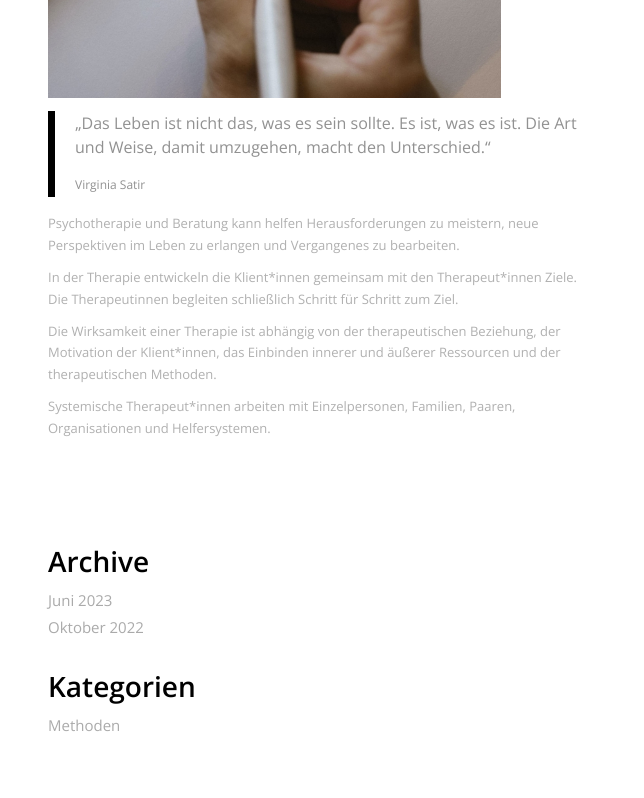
#include <cairo/cairo.h>
#include <math.h>
#include <stddef.h>


static void draw_image(cairo_t *cr, const char *path, double x, double y, double w, double h) {
  cairo_surface_t *image = cairo_image_surface_create_from_png(path);
  cairo_save(cr);
  cairo_set_source_surface(cr, image, x, y);
  cairo_rectangle(cr, x, y, w, h);
  cairo_fill(cr);
  cairo_restore(cr);
  cairo_surface_destroy(image);
}

static void draw(cairo_t *cr) {
  cairo_set_source_rgb(cr, 1, 1, 1);
  cairo_paint(cr);
  draw_image(cr, "images/1.png", 48, 0, 453, 98);
  cairo_set_source_rgb(cr, 0, 0, 0);
  cairo_rectangle(cr, 48, 111, 7, 86);
  cairo_fill(cr);
  cairo_select_font_face(cr, "Open Sans", CAIRO_FONT_SLANT_NORMAL, CAIRO_FONT_WEIGHT_NORMAL);
  cairo_set_font_size(cr, 16.05);
  cairo_set_source_rgb(cr, 145 / 255.0, 145 / 255.0, 145 / 255.0);
  cairo_move_to(cr, 75, 129);
  cairo_show_text(cr, "„Das Leben ist nicht das, was es sein sollte. Es ist, was es ist. Die Art");
  cairo_move_to(cr, 75, 153);
  cairo_show_text(cr, "und Weise, damit umzugehen, macht den Unterschied.“");
  cairo_set_font_size(cr, 12);
  cairo_move_to(cr, 75, 189);
  cairo_show_text(cr, "Virginia Satir");
  cairo_set_font_size(cr, 13);
  cairo_set_source_rgb(cr, 176 / 255.0, 176 / 255.0, 176 / 255.0);
  cairo_move_to(cr, 48, 228);
  cairo_show_text(cr, "Psychotherapie und Beratung kann helfen Herausforderungen zu meistern, neue");
  cairo_move_to(cr, 48, 250);
  cairo_show_text(cr, "Perspektiven im Leben zu erlangen und Vergangenes zu bearbeiten.");
  cairo_move_to(cr, 48, 282);
  cairo_show_text(cr, "In der Therapie entwickeln die Klient*innen gemeinsam mit den Therapeut*innen Ziele.");
  cairo_move_to(cr, 48, 304);
  cairo_show_text(cr, "Die Therapeutinnen begleiten schließlich Schritt für Schritt zum Ziel.");
  cairo_move_to(cr, 48, 336);
  cairo_show_text(cr, "Die Wirksamkeit einer Therapie ist abhängig von der therapeutischen Beziehung, der");
  cairo_move_to(cr, 48, 357);
  cairo_show_text(cr, "Motivation der Klient*innen, das Einbinden innerer und äußerer Ressourcen und der");
  cairo_move_to(cr, 48, 379);
  cairo_show_text(cr, "therapeutischen Methoden.");
  cairo_move_to(cr, 48, 411);
  cairo_show_text(cr, "Systemische Therapeut*innen arbeiten mit Einzelpersonen, Familien, Paaren,");
  cairo_move_to(cr, 48, 433);
  cairo_show_text(cr, "Organisationen und Helfersystemen.");
  cairo_select_font_face(cr, "Open Sans SemiBold", CAIRO_FONT_SLANT_NORMAL, CAIRO_FONT_WEIGHT_NORMAL);
  cairo_set_font_size(cr, 28);
  cairo_set_source_rgb(cr, 0, 0, 0);
  cairo_move_to(cr, 48, 572);
  cairo_show_text(cr, "Archive");
  cairo_select_font_face(cr, "Open Sans", CAIRO_FONT_SLANT_NORMAL, CAIRO_FONT_WEIGHT_NORMAL);
  cairo_set_font_size(cr, 15);
  cairo_set_source_rgb(cr, 170 / 255.0, 170 / 255.0, 170 / 255.0);
  cairo_move_to(cr, 48, 606);
  cairo_show_text(cr, "Juni 2023");
  cairo_move_to(cr, 48, 633);
  cairo_show_text(cr, "Oktober 2022");
  cairo_select_font_face(cr, "Open Sans SemiBold", CAIRO_FONT_SLANT_NORMAL, CAIRO_FONT_WEIGHT_NORMAL);
  cairo_set_font_size(cr, 28);
  cairo_set_source_rgb(cr, 0, 0, 0);
  cairo_move_to(cr, 48, 697);
  cairo_show_text(cr, "Kategorien");
  cairo_select_font_face(cr, "Open Sans", CAIRO_FONT_SLANT_NORMAL, CAIRO_FONT_WEIGHT_NORMAL);
  cairo_set_font_size(cr, 15);
  cairo_set_source_rgb(cr, 170 / 255.0, 170 / 255.0, 170 / 255.0);
  cairo_move_to(cr, 48, 731);
  cairo_show_text(cr, "Methoden");
}

int main(void) {
  cairo_surface_t *surface = cairo_image_surface_create(CAIRO_FORMAT_RGB24, 644, 798);
  cairo_t *cr = cairo_create(surface);
  cairo_font_options_t *options = cairo_font_options_create();
  cairo_font_options_set_hint_metrics(options, CAIRO_HINT_METRICS_OFF);
  cairo_font_options_set_hint_style(options, CAIRO_HINT_STYLE_NONE);
  cairo_set_font_options(cr, options);
  cairo_set_miter_limit(cr, 4);
  draw(cr);
  cairo_surface_write_to_png(surface, "out.png");
  cairo_font_options_destroy(options);
  cairo_destroy(cr);
  cairo_surface_destroy(surface);
  return 0;
}
